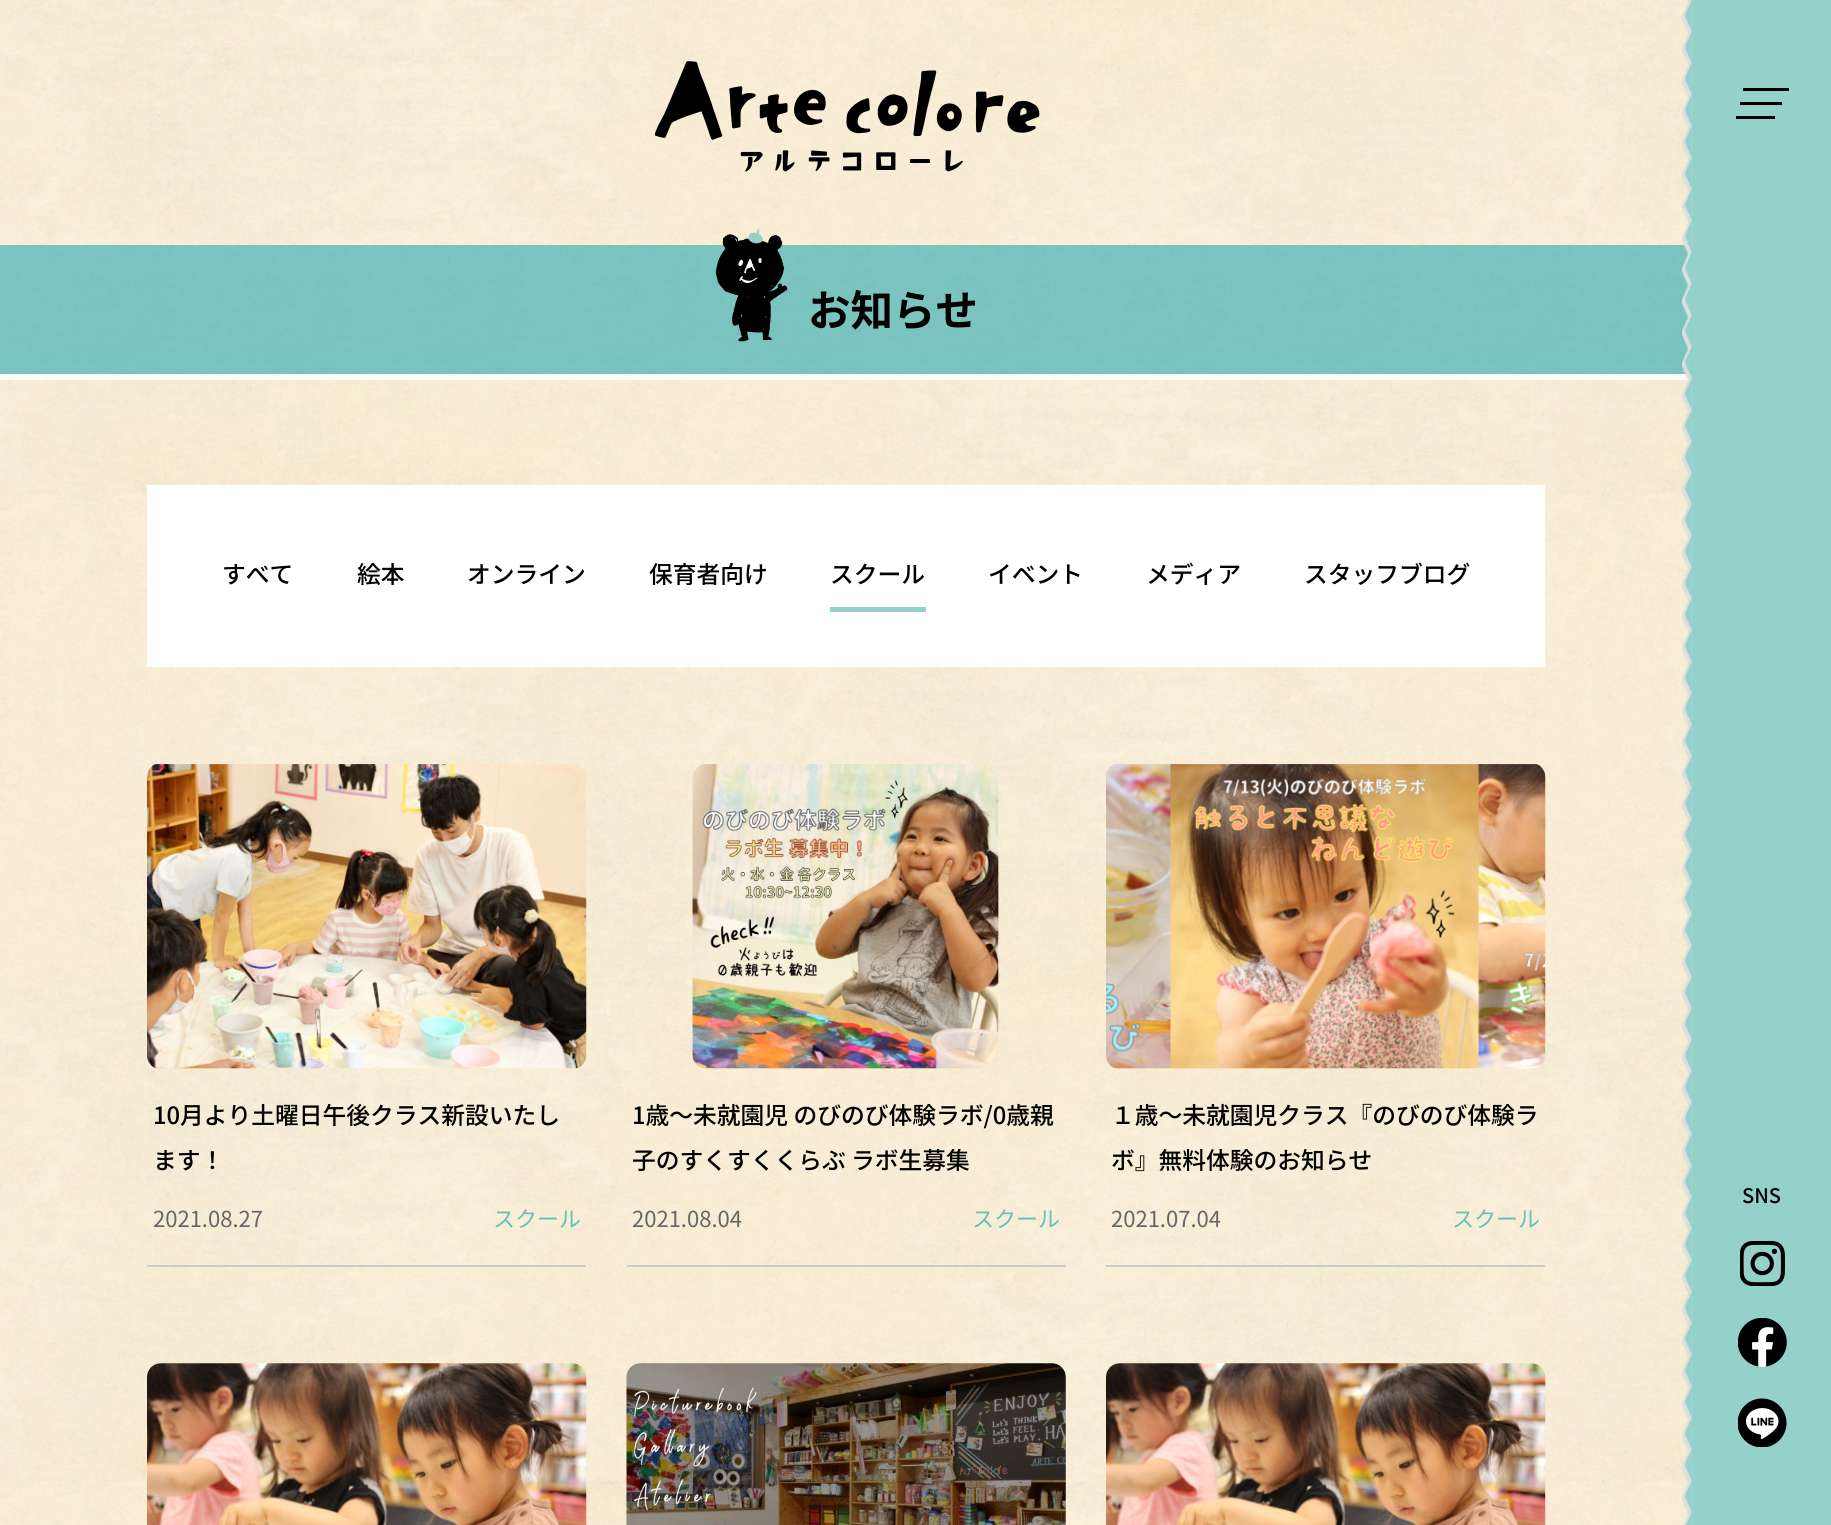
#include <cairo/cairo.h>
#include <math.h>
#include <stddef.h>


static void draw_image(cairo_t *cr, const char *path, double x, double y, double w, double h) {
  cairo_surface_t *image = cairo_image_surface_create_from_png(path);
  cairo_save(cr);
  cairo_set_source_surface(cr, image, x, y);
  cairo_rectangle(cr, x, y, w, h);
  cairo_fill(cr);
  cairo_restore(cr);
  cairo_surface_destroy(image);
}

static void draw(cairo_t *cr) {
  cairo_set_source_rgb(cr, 1, 1, 1);
  cairo_paint(cr);
  draw_image(cr, "images/1.png", 0, 0, 1692, 1525);
  draw_image(cr, "images/2.png", 655, 61, 385, 111);
  draw_image(cr, "images/3.png", 0, 245, 1692, 129);
  draw_image(cr, "images/4.png", 715, 229, 73, 113);
  cairo_set_source_rgb(cr, 254 / 255.0, 252 / 255.0, 248 / 255.0);
  cairo_rectangle(cr, 0, 374, 1693, 6);
  cairo_fill(cr);
  cairo_set_source_rgb(cr, 1, 1, 1);
  cairo_rectangle(cr, 147, 485, 1398, 182);
  cairo_fill(cr);
  cairo_set_source_rgb(cr, 148 / 255.0, 209 / 255.0, 202 / 255.0);
  cairo_rectangle(cr, 830, 607, 96, 5);
  cairo_fill(cr);
  cairo_set_source_rgb(cr, 204 / 255.0, 204 / 255.0, 204 / 255.0);
  cairo_rectangle(cr, 147, 1265, 439, 2);
  cairo_fill(cr);
  draw_image(cr, "images/5.png", 147, 764, 440, 305);
  cairo_rectangle(cr, 627, 1265, 439, 2);
  cairo_fill(cr);
  draw_image(cr, "images/6.png", 692, 764, 307, 305);
  cairo_rectangle(cr, 1106, 1265, 439, 2);
  cairo_fill(cr);
  draw_image(cr, "images/7.png", 1106, 764, 440, 305);
  draw_image(cr, "images/8.png", 147, 1363, 440, 162);
  draw_image(cr, "images/9.png", 626, 1363, 440, 162);
  draw_image(cr, "images/10.png", 1106, 1363, 440, 162);
  cairo_set_source_rgb(cr, 148 / 255.0, 209 / 255.0, 202 / 255.0);
  cairo_rectangle(cr, 1692, 0, 139, 1525);
  cairo_fill(cr);
  draw_image(cr, "images/11.png", 1682, 0, 10, 1525);
  cairo_set_source_rgb(cr, 0, 0, 0);
  cairo_rectangle(cr, 1743, 88, 46, 3);
  cairo_fill(cr);
  cairo_rectangle(cr, 1740, 102, 42, 3);
  cairo_fill(cr);
  cairo_rectangle(cr, 1736, 116, 39, 3);
  cairo_fill(cr);
  draw_image(cr, "images/12.png", 1740, 1241, 45, 45);
  draw_image(cr, "images/13.png", 1738, 1318, 49, 49);
  draw_image(cr, "images/14.png", 1738, 1398, 49, 49);
  cairo_select_font_face(cr, "Noto Sans JP", CAIRO_FONT_SLANT_NORMAL, CAIRO_FONT_WEIGHT_BOLD);
  cairo_set_font_size(cr, 42.5);
  cairo_move_to(cr, 808, 326);
  cairo_show_text(cr, "お知らせ");
  cairo_select_font_face(cr, "Noto Sans JP Medium", CAIRO_FONT_SLANT_NORMAL, CAIRO_FONT_WEIGHT_NORMAL);
  cairo_set_font_size(cr, 23.75);
  cairo_move_to(cr, 222, 583);
  cairo_show_text(cr, "すべて");
  cairo_move_to(cr, 357, 583);
  cairo_show_text(cr, "絵本");
  cairo_move_to(cr, 467, 583);
  cairo_show_text(cr, "オンライン");
  cairo_move_to(cr, 649, 583);
  cairo_show_text(cr, "保育者向け");
  cairo_move_to(cr, 830, 583);
  cairo_show_text(cr, "スクール");
  cairo_move_to(cr, 988, 583);
  cairo_show_text(cr, "イベント");
  cairo_move_to(cr, 1146, 583);
  cairo_show_text(cr, "メディア");
  cairo_move_to(cr, 1304, 583);
  cairo_show_text(cr, "スタッフブログ");
  cairo_move_to(cr, 153, 1124);
  cairo_show_text(cr, "10月より土曜日午後クラス新設いたし");
  cairo_move_to(cr, 153, 1169);
  cairo_show_text(cr, "ます！");
  cairo_select_font_face(cr, "Noto Sans JP", CAIRO_FONT_SLANT_NORMAL, CAIRO_FONT_WEIGHT_NORMAL);
  cairo_set_font_size(cr, 22);
  cairo_set_source_rgb(cr, 102 / 255.0, 102 / 255.0, 102 / 255.0);
  cairo_move_to(cr, 153, 1227);
  cairo_show_text(cr, "2021.08.27");
  cairo_set_source_rgb(cr, 97 / 255.0, 192 / 255.0, 187 / 255.0);
  cairo_move_to(cr, 493, 1227);
  cairo_show_text(cr, "スクール");
  cairo_select_font_face(cr, "Noto Sans JP Medium", CAIRO_FONT_SLANT_NORMAL, CAIRO_FONT_WEIGHT_NORMAL);
  cairo_set_font_size(cr, 23.75);
  cairo_set_source_rgb(cr, 0, 0, 0);
  cairo_move_to(cr, 632, 1124);
  cairo_show_text(cr, "1歳〜未就園児 のびのび体験ラボ/0歳親");
  cairo_move_to(cr, 632, 1169);
  cairo_show_text(cr, "子のすくすくくらぶ ラボ生募集");
  cairo_select_font_face(cr, "Noto Sans JP", CAIRO_FONT_SLANT_NORMAL, CAIRO_FONT_WEIGHT_NORMAL);
  cairo_set_font_size(cr, 22);
  cairo_set_source_rgb(cr, 102 / 255.0, 102 / 255.0, 102 / 255.0);
  cairo_move_to(cr, 632, 1227);
  cairo_show_text(cr, "2021.08.04");
  cairo_set_source_rgb(cr, 97 / 255.0, 192 / 255.0, 187 / 255.0);
  cairo_move_to(cr, 972, 1227);
  cairo_show_text(cr, "スクール");
  cairo_select_font_face(cr, "Noto Sans JP Medium", CAIRO_FONT_SLANT_NORMAL, CAIRO_FONT_WEIGHT_NORMAL);
  cairo_set_font_size(cr, 23.75);
  cairo_set_source_rgb(cr, 0, 0, 0);
  cairo_move_to(cr, 1111, 1124);
  cairo_show_text(cr, "１歳〜未就園児クラス『のびのび体験ラ");
  cairo_move_to(cr, 1111, 1169);
  cairo_show_text(cr, "ボ』無料体験のお知らせ");
  cairo_select_font_face(cr, "Noto Sans JP", CAIRO_FONT_SLANT_NORMAL, CAIRO_FONT_WEIGHT_NORMAL);
  cairo_set_font_size(cr, 22);
  cairo_set_source_rgb(cr, 102 / 255.0, 102 / 255.0, 102 / 255.0);
  cairo_move_to(cr, 1111, 1227);
  cairo_show_text(cr, "2021.07.04");
  cairo_set_source_rgb(cr, 97 / 255.0, 192 / 255.0, 187 / 255.0);
  cairo_move_to(cr, 1452, 1227);
  cairo_show_text(cr, "スクール");
  cairo_select_font_face(cr, "Noto Sans JP Medium", CAIRO_FONT_SLANT_NORMAL, CAIRO_FONT_WEIGHT_NORMAL);
  cairo_set_font_size(cr, 20);
  cairo_set_source_rgb(cr, 0, 0, 0);
  cairo_move_to(cr, 1742, 1203);
  cairo_show_text(cr, "SNS");
}

int main(void) {
  cairo_surface_t *surface = cairo_image_surface_create(CAIRO_FORMAT_RGB24, 1831, 1525);
  cairo_t *cr = cairo_create(surface);
  cairo_font_options_t *options = cairo_font_options_create();
  cairo_font_options_set_hint_metrics(options, CAIRO_HINT_METRICS_OFF);
  cairo_font_options_set_hint_style(options, CAIRO_HINT_STYLE_NONE);
  cairo_set_font_options(cr, options);
  cairo_set_miter_limit(cr, 4);
  draw(cr);
  cairo_surface_write_to_png(surface, "out.png");
  cairo_font_options_destroy(options);
  cairo_destroy(cr);
  cairo_surface_destroy(surface);
  return 0;
}
